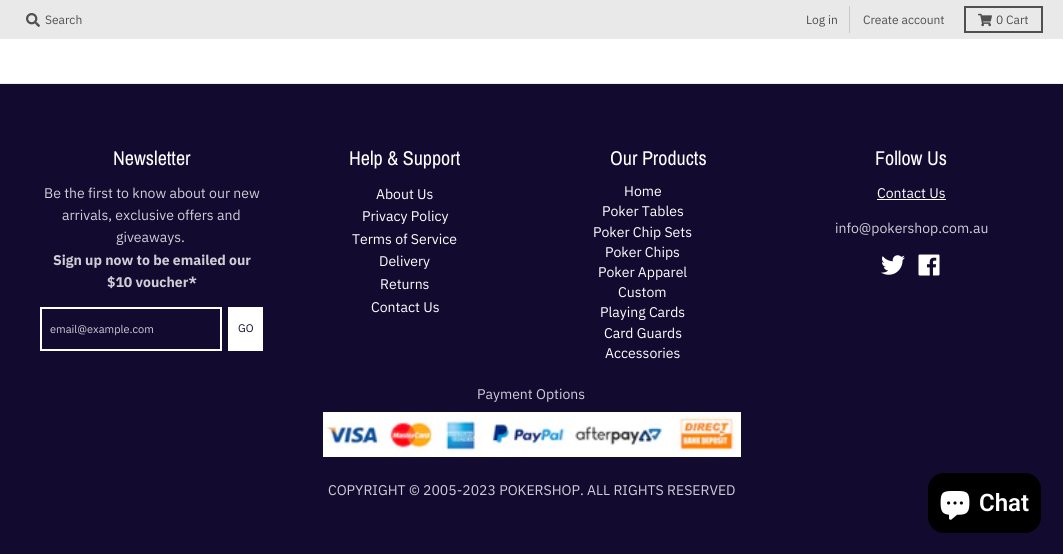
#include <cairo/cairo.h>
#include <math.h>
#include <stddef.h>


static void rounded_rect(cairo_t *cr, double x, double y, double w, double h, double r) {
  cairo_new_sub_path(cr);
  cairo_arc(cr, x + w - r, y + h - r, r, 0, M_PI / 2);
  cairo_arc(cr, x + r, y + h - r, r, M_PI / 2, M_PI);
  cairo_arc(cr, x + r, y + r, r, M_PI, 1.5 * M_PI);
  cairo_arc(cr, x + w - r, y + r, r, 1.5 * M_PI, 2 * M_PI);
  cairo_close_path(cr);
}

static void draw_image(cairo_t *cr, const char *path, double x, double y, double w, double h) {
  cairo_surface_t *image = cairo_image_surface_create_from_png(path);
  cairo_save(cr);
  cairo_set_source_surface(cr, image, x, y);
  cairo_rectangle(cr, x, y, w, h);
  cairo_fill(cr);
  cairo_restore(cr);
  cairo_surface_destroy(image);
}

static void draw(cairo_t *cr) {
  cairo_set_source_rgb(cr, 1, 1, 1);
  cairo_paint(cr);
  cairo_set_source_rgb(cr, 233 / 255.0, 233 / 255.0, 233 / 255.0);
  cairo_rectangle(cr, 0, 0, 1063, 39);
  cairo_fill(cr);
  draw_image(cr, "images/1.png", 26, 13, 14, 14);
  cairo_set_source_rgb(cr, 202 / 255.0, 202 / 255.0, 202 / 255.0);
  cairo_rectangle(cr, 849, 6, 1, 27);
  cairo_fill(cr);
  cairo_rectangle(cr, 965, 7, 77, 25);
  cairo_set_source_rgb(cr, 80 / 255.0, 80 / 255.0, 80 / 255.0);
  cairo_stroke(cr);
  draw_image(cr, "images/2.png", 978, 13, 14, 14);
  cairo_set_source_rgb(cr, 237 / 255.0, 237 / 255.0, 237 / 255.0);
  cairo_rectangle(cr, 0, 83, 1063, 1);
  cairo_fill(cr);
  cairo_set_source_rgb(cr, 19 / 255.0, 10 / 255.0, 48 / 255.0);
  cairo_rectangle(cr, 0, 84, 1063, 470);
  cairo_fill(cr);
  cairo_rectangle(cr, 41, 308, 180, 42);
  cairo_set_source_rgb(cr, 1, 1, 1);
  cairo_stroke(cr);
  cairo_rectangle(cr, 228, 307, 35, 44);
  cairo_fill(cr);
  cairo_rectangle(cr, 877, 199, 69, 1);
  cairo_fill(cr);
  draw_image(cr, "images/3.png", 881, 255, 24, 20);
  draw_image(cr, "images/4.png", 918, 254, 22, 22);
  draw_image(cr, "images/5.png", 323, 412, 418, 45);
  cairo_set_source_rgb(cr, 0, 0, 0);
  rounded_rect(cr, 928, 473, 113, 60, 16);
  cairo_fill(cr);
  draw_image(cr, "images/6.png", 940, 491, 30, 29);
  cairo_select_font_face(cr, "IBM Plex Sans", CAIRO_FONT_SLANT_NORMAL, CAIRO_FONT_WEIGHT_NORMAL);
  cairo_set_font_size(cr, 12);
  cairo_set_source_rgb(cr, 80 / 255.0, 80 / 255.0, 80 / 255.0);
  cairo_move_to(cr, 45, 24);
  cairo_show_text(cr, "Search");
  cairo_move_to(cr, 806, 24);
  cairo_show_text(cr, "Log in");
  cairo_move_to(cr, 863, 24);
  cairo_show_text(cr, "Create account");
  cairo_move_to(cr, 996, 24);
  cairo_show_text(cr, "0 Cart");
  cairo_select_font_face(cr, "Archivo Narrow", CAIRO_FONT_SLANT_NORMAL, CAIRO_FONT_WEIGHT_NORMAL);
  cairo_set_font_size(cr, 20);
  cairo_set_source_rgb(cr, 1, 1, 1);
  cairo_move_to(cr, 113, 165);
  cairo_show_text(cr, "Newsletter");
  cairo_select_font_face(cr, "IBM Plex Sans", CAIRO_FONT_SLANT_NORMAL, CAIRO_FONT_WEIGHT_NORMAL);
  cairo_set_font_size(cr, 14);
  cairo_set_source_rgb(cr, 207 / 255.0, 206 / 255.0, 213 / 255.0);
  cairo_move_to(cr, 44, 198);
  cairo_show_text(cr, "Be the first to know about our new");
  cairo_move_to(cr, 62, 220);
  cairo_show_text(cr, "arrivals, exclusive offers and");
  cairo_move_to(cr, 116, 242);
  cairo_show_text(cr, "giveaways.");
  cairo_select_font_face(cr, "IBM Plex Sans", CAIRO_FONT_SLANT_NORMAL, CAIRO_FONT_WEIGHT_BOLD);
  cairo_move_to(cr, 53, 265);
  cairo_show_text(cr, "Sign up now to be emailed our");
  cairo_move_to(cr, 107, 287);
  cairo_show_text(cr, "$10 voucher*");
  cairo_select_font_face(cr, "IBM Plex Sans", CAIRO_FONT_SLANT_NORMAL, CAIRO_FONT_WEIGHT_NORMAL);
  cairo_set_font_size(cr, 11);
  cairo_move_to(cr, 50, 333);
  cairo_show_text(cr, "email@example.com");
  cairo_set_source_rgb(cr, 19 / 255.0, 10 / 255.0, 48 / 255.0);
  cairo_move_to(cr, 238, 332);
  cairo_show_text(cr, "GO");
  cairo_select_font_face(cr, "Archivo Narrow", CAIRO_FONT_SLANT_NORMAL, CAIRO_FONT_WEIGHT_NORMAL);
  cairo_set_font_size(cr, 20);
  cairo_set_source_rgb(cr, 1, 1, 1);
  cairo_move_to(cr, 349, 165);
  cairo_show_text(cr, "Help & Support");
  cairo_select_font_face(cr, "IBM Plex Sans", CAIRO_FONT_SLANT_NORMAL, CAIRO_FONT_WEIGHT_NORMAL);
  cairo_set_font_size(cr, 14);
  cairo_move_to(cr, 376, 199);
  cairo_show_text(cr, "About Us");
  cairo_move_to(cr, 362, 221);
  cairo_show_text(cr, "Privacy Policy");
  cairo_move_to(cr, 352, 244);
  cairo_show_text(cr, "Terms of Service");
  cairo_move_to(cr, 379, 266);
  cairo_show_text(cr, "Delivery");
  cairo_move_to(cr, 380, 289);
  cairo_show_text(cr, "Returns");
  cairo_move_to(cr, 371, 312);
  cairo_show_text(cr, "Contact Us");
  cairo_select_font_face(cr, "Archivo Narrow", CAIRO_FONT_SLANT_NORMAL, CAIRO_FONT_WEIGHT_NORMAL);
  cairo_set_font_size(cr, 20);
  cairo_move_to(cr, 610, 165);
  cairo_show_text(cr, "Our Products");
  cairo_select_font_face(cr, "IBM Plex Sans", CAIRO_FONT_SLANT_NORMAL, CAIRO_FONT_WEIGHT_NORMAL);
  cairo_set_font_size(cr, 14);
  cairo_move_to(cr, 624, 196);
  cairo_show_text(cr, "Home");
  cairo_move_to(cr, 602, 216);
  cairo_show_text(cr, "Poker Tables");
  cairo_move_to(cr, 593, 237);
  cairo_show_text(cr, "Poker Chip Sets");
  cairo_move_to(cr, 605, 257);
  cairo_show_text(cr, "Poker Chips");
  cairo_move_to(cr, 598, 277);
  cairo_show_text(cr, "Poker Apparel");
  cairo_move_to(cr, 618, 297);
  cairo_show_text(cr, "Custom");
  cairo_move_to(cr, 600, 317);
  cairo_show_text(cr, "Playing Cards");
  cairo_move_to(cr, 604, 338);
  cairo_show_text(cr, "Card Guards");
  cairo_move_to(cr, 605, 358);
  cairo_show_text(cr, "Accessories");
  cairo_select_font_face(cr, "Archivo Narrow", CAIRO_FONT_SLANT_NORMAL, CAIRO_FONT_WEIGHT_NORMAL);
  cairo_set_font_size(cr, 20);
  cairo_move_to(cr, 875, 165);
  cairo_show_text(cr, "Follow Us");
  cairo_select_font_face(cr, "IBM Plex Sans", CAIRO_FONT_SLANT_NORMAL, CAIRO_FONT_WEIGHT_NORMAL);
  cairo_set_font_size(cr, 14);
  cairo_move_to(cr, 877, 198);
  cairo_show_text(cr, "Contact Us");
  cairo_set_source_rgb(cr, 207 / 255.0, 206 / 255.0, 213 / 255.0);
  cairo_move_to(cr, 835, 233);
  cairo_show_text(cr, "info@pokershop.com.au");
  cairo_move_to(cr, 477, 399);
  cairo_show_text(cr, "Payment Options");
  cairo_move_to(cr, 328, 495);
  cairo_show_text(cr, "COPYRIGHT © 2005-2023 POKERSHOP. ALL RIGHTS RESERVED");
  cairo_select_font_face(cr, "Roboto SemiBold", CAIRO_FONT_SLANT_NORMAL, CAIRO_FONT_WEIGHT_NORMAL);
  cairo_set_font_size(cr, 24);
  cairo_set_source_rgb(cr, 1, 1, 1);
  cairo_move_to(cr, 979, 511);
  cairo_show_text(cr, "Chat");
}

int main(void) {
  cairo_surface_t *surface = cairo_image_surface_create(CAIRO_FORMAT_RGB24, 1063, 554);
  cairo_t *cr = cairo_create(surface);
  cairo_font_options_t *options = cairo_font_options_create();
  cairo_font_options_set_hint_metrics(options, CAIRO_HINT_METRICS_OFF);
  cairo_font_options_set_hint_style(options, CAIRO_HINT_STYLE_NONE);
  cairo_set_font_options(cr, options);
  cairo_set_miter_limit(cr, 4);
  draw(cr);
  cairo_surface_write_to_png(surface, "out.png");
  cairo_font_options_destroy(options);
  cairo_destroy(cr);
  cairo_surface_destroy(surface);
  return 0;
}
